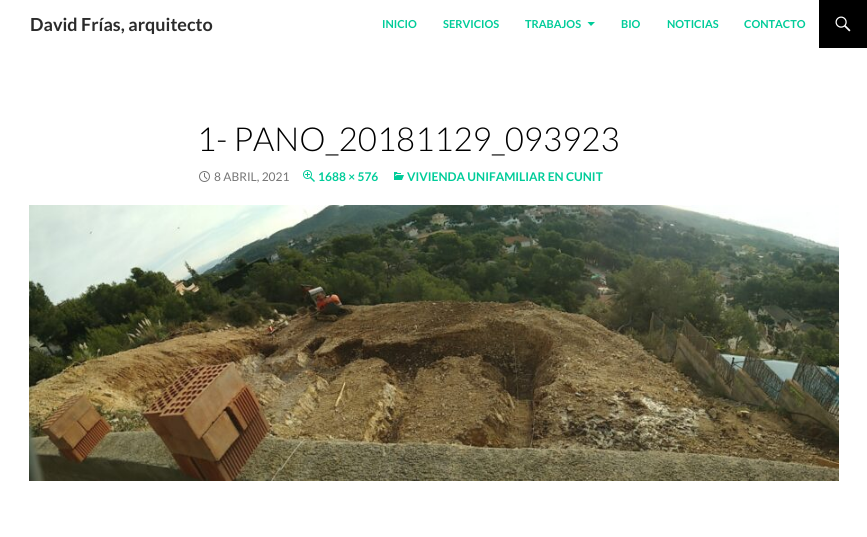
#include <cairo/cairo.h>
#include <math.h>
#include <stddef.h>


static void draw_image(cairo_t *cr, const char *path, double x, double y, double w, double h) {
  cairo_surface_t *image = cairo_image_surface_create_from_png(path);
  cairo_save(cr);
  cairo_set_source_surface(cr, image, x, y);
  cairo_rectangle(cr, x, y, w, h);
  cairo_fill(cr);
  cairo_restore(cr);
  cairo_surface_destroy(image);
}

static void draw(cairo_t *cr) {
  cairo_set_source_rgb(cr, 1, 1, 1);
  cairo_paint(cr);
  cairo_set_source_rgb(cr, 0, 204 / 255.0, 153 / 255.0);
  cairo_new_path(cr);
  cairo_move_to(cr, 587.5, 22);
  cairo_line_to(cr, 595, 22);
  cairo_line_to(cr, 591, 26);
  cairo_close_path(cr);
  cairo_fill(cr);
  cairo_set_source_rgb(cr, 0, 0, 0);
  cairo_rectangle(cr, 819, 0, 48, 48);
  cairo_fill(cr);
  draw_image(cr, "images/1.png", 835, 16, 16, 16);
  draw_image(cr, "images/2.png", 199, 171, 11, 11);
  draw_image(cr, "images/3.png", 303, 170, 12, 12);
  draw_image(cr, "images/4.png", 394, 172, 10, 8);
  draw_image(cr, "images/5.png", 29, 205, 810, 276);
  cairo_select_font_face(cr, "Lato", CAIRO_FONT_SLANT_NORMAL, CAIRO_FONT_WEIGHT_BOLD);
  cairo_set_font_size(cr, 18);
  cairo_set_source_rgb(cr, 43 / 255.0, 43 / 255.0, 43 / 255.0);
  cairo_move_to(cr, 30, 31);
  cairo_show_text(cr, "David Frías, arquitecto");
  cairo_set_font_size(cr, 11);
  cairo_set_source_rgb(cr, 0, 204 / 255.0, 153 / 255.0);
  cairo_move_to(cr, 382, 28);
  cairo_show_text(cr, "INICIO");
  cairo_move_to(cr, 443, 28);
  cairo_show_text(cr, "SERVICIOS");
  cairo_move_to(cr, 525, 28);
  cairo_show_text(cr, "TRABAJOS");
  cairo_move_to(cr, 621, 28);
  cairo_show_text(cr, "BIO");
  cairo_move_to(cr, 667, 28);
  cairo_show_text(cr, "NOTICIAS");
  cairo_move_to(cr, 744, 28);
  cairo_show_text(cr, "CONTACTO");
  cairo_select_font_face(cr, "Lato Light", CAIRO_FONT_SLANT_NORMAL, CAIRO_FONT_WEIGHT_NORMAL);
  cairo_set_font_size(cr, 33);
  cairo_set_source_rgb(cr, 0, 0, 0);
  cairo_move_to(cr, 197, 151);
  cairo_show_text(cr, "1- PANO_20181129_093923");
  cairo_select_font_face(cr, "Lato", CAIRO_FONT_SLANT_NORMAL, CAIRO_FONT_WEIGHT_NORMAL);
  cairo_set_font_size(cr, 12);
  cairo_set_source_rgb(cr, 118 / 255.0, 118 / 255.0, 118 / 255.0);
  cairo_move_to(cr, 214, 181);
  cairo_show_text(cr, "8 ABRIL, 2021");
  cairo_select_font_face(cr, "Lato", CAIRO_FONT_SLANT_NORMAL, CAIRO_FONT_WEIGHT_BOLD);
  cairo_set_source_rgb(cr, 0, 204 / 255.0, 153 / 255.0);
  cairo_move_to(cr, 318, 181);
  cairo_show_text(cr, "1688 × 576");
  cairo_move_to(cr, 407, 181);
  cairo_show_text(cr, "VIVIENDA UNIFAMILIAR EN CUNIT");
}

int main(void) {
  cairo_surface_t *surface = cairo_image_surface_create(CAIRO_FORMAT_RGB24, 867, 537);
  cairo_t *cr = cairo_create(surface);
  cairo_font_options_t *options = cairo_font_options_create();
  cairo_font_options_set_hint_metrics(options, CAIRO_HINT_METRICS_OFF);
  cairo_font_options_set_hint_style(options, CAIRO_HINT_STYLE_NONE);
  cairo_set_font_options(cr, options);
  cairo_set_miter_limit(cr, 4);
  draw(cr);
  cairo_surface_write_to_png(surface, "out.png");
  cairo_font_options_destroy(options);
  cairo_destroy(cr);
  cairo_surface_destroy(surface);
  return 0;
}
